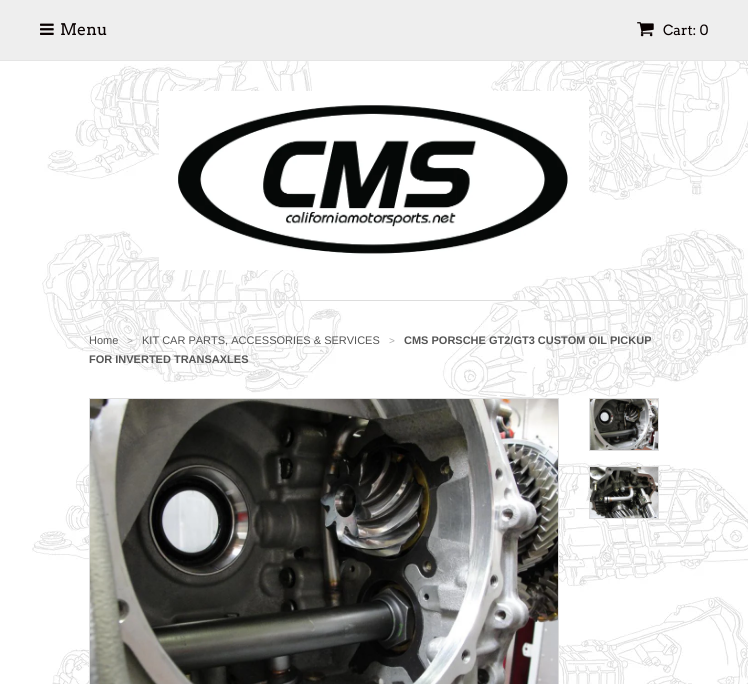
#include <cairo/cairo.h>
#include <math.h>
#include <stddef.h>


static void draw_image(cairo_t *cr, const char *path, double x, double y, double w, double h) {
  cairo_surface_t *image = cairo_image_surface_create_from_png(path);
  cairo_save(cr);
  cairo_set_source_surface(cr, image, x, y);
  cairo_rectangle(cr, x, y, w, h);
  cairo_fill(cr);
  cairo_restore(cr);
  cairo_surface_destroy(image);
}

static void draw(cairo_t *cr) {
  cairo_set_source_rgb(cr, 1, 1, 1);
  cairo_paint(cr);
  draw_image(cr, "images/1.png", 32, 61, 716, 623);
  cairo_set_source_rgb(cr, 238 / 255.0, 238 / 255.0, 238 / 255.0);
  cairo_rectangle(cr, 0, 0, 748, 60);
  cairo_fill(cr);
  cairo_set_source_rgb(cr, 229 / 255.0, 229 / 255.0, 229 / 255.0);
  cairo_rectangle(cr, 0, 60, 748, 1);
  cairo_fill(cr);
  draw_image(cr, "images/2.png", 40, 23, 14, 12);
  draw_image(cr, "images/3.png", 637, 22, 17, 15);
  cairo_set_source_rgb(cr, 221 / 255.0, 221 / 255.0, 221 / 255.0);
  cairo_rectangle(cr, 89, 300, 570, 1);
  cairo_fill(cr);
  draw_image(cr, "images/4.png", 159, 91, 430, 179);
  cairo_rectangle(cr, 89.5, 398.5, 469, 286);
  cairo_set_line_width(cr, 1);
  cairo_stroke(cr);
  draw_image(cr, "images/5.png", 90, 399, 468, 285);
  cairo_rectangle(cr, 589.5, 398.5, 69, 52);
  cairo_stroke(cr);
  draw_image(cr, "images/6.png", 590, 399, 68, 51);
  cairo_rectangle(cr, 589.5, 466.5, 69, 52);
  cairo_stroke(cr);
  draw_image(cr, "images/7.png", 590, 467, 68, 51);
  cairo_select_font_face(cr, "Arvo", CAIRO_FONT_SLANT_NORMAL, CAIRO_FONT_WEIGHT_NORMAL);
  cairo_set_font_size(cr, 16);
  cairo_set_source_rgb(cr, 8 / 255.0, 0, 0);
  cairo_move_to(cr, 60, 35);
  cairo_show_text(cr, "Menu");
  cairo_set_font_size(cr, 14);
  cairo_move_to(cr, 663, 35);
  cairo_show_text(cr, "Cart: 0");
  cairo_select_font_face(cr, "Liberation Sans", CAIRO_FONT_SLANT_NORMAL, CAIRO_FONT_WEIGHT_NORMAL);
  cairo_set_font_size(cr, 11);
  cairo_set_source_rgb(cr, 85 / 255.0, 85 / 255.0, 85 / 255.0);
  cairo_move_to(cr, 89, 344);
  cairo_show_text(cr, "Home");
  cairo_set_font_size(cr, 10);
  cairo_set_source_rgb(cr, 162 / 255.0, 162 / 255.0, 162 / 255.0);
  cairo_move_to(cr, 127, 344);
  cairo_show_text(cr, ">");
  cairo_set_font_size(cr, 11);
  cairo_set_source_rgb(cr, 85 / 255.0, 85 / 255.0, 85 / 255.0);
  cairo_move_to(cr, 142, 344);
  cairo_show_text(cr, "KIT CAR PARTS, ACCESSORIES & SERVICES");
  cairo_set_font_size(cr, 10);
  cairo_set_source_rgb(cr, 170 / 255.0, 170 / 255.0, 170 / 255.0);
  cairo_move_to(cr, 389, 344);
  cairo_show_text(cr, ">");
  cairo_select_font_face(cr, "Liberation Sans", CAIRO_FONT_SLANT_NORMAL, CAIRO_FONT_WEIGHT_BOLD);
  cairo_set_font_size(cr, 11);
  cairo_set_source_rgb(cr, 85 / 255.0, 85 / 255.0, 85 / 255.0);
  cairo_move_to(cr, 404, 344);
  cairo_show_text(cr, "CMS PORSCHE GT2/GT3 CUSTOM OIL PICKUP");
  cairo_move_to(cr, 89, 363);
  cairo_show_text(cr, "FOR INVERTED TRANSAXLES");
}

int main(void) {
  cairo_surface_t *surface = cairo_image_surface_create(CAIRO_FORMAT_RGB24, 748, 684);
  cairo_t *cr = cairo_create(surface);
  cairo_font_options_t *options = cairo_font_options_create();
  cairo_font_options_set_hint_metrics(options, CAIRO_HINT_METRICS_OFF);
  cairo_font_options_set_hint_style(options, CAIRO_HINT_STYLE_NONE);
  cairo_set_font_options(cr, options);
  cairo_set_miter_limit(cr, 4);
  draw(cr);
  cairo_surface_write_to_png(surface, "out.png");
  cairo_font_options_destroy(options);
  cairo_destroy(cr);
  cairo_surface_destroy(surface);
  return 0;
}
